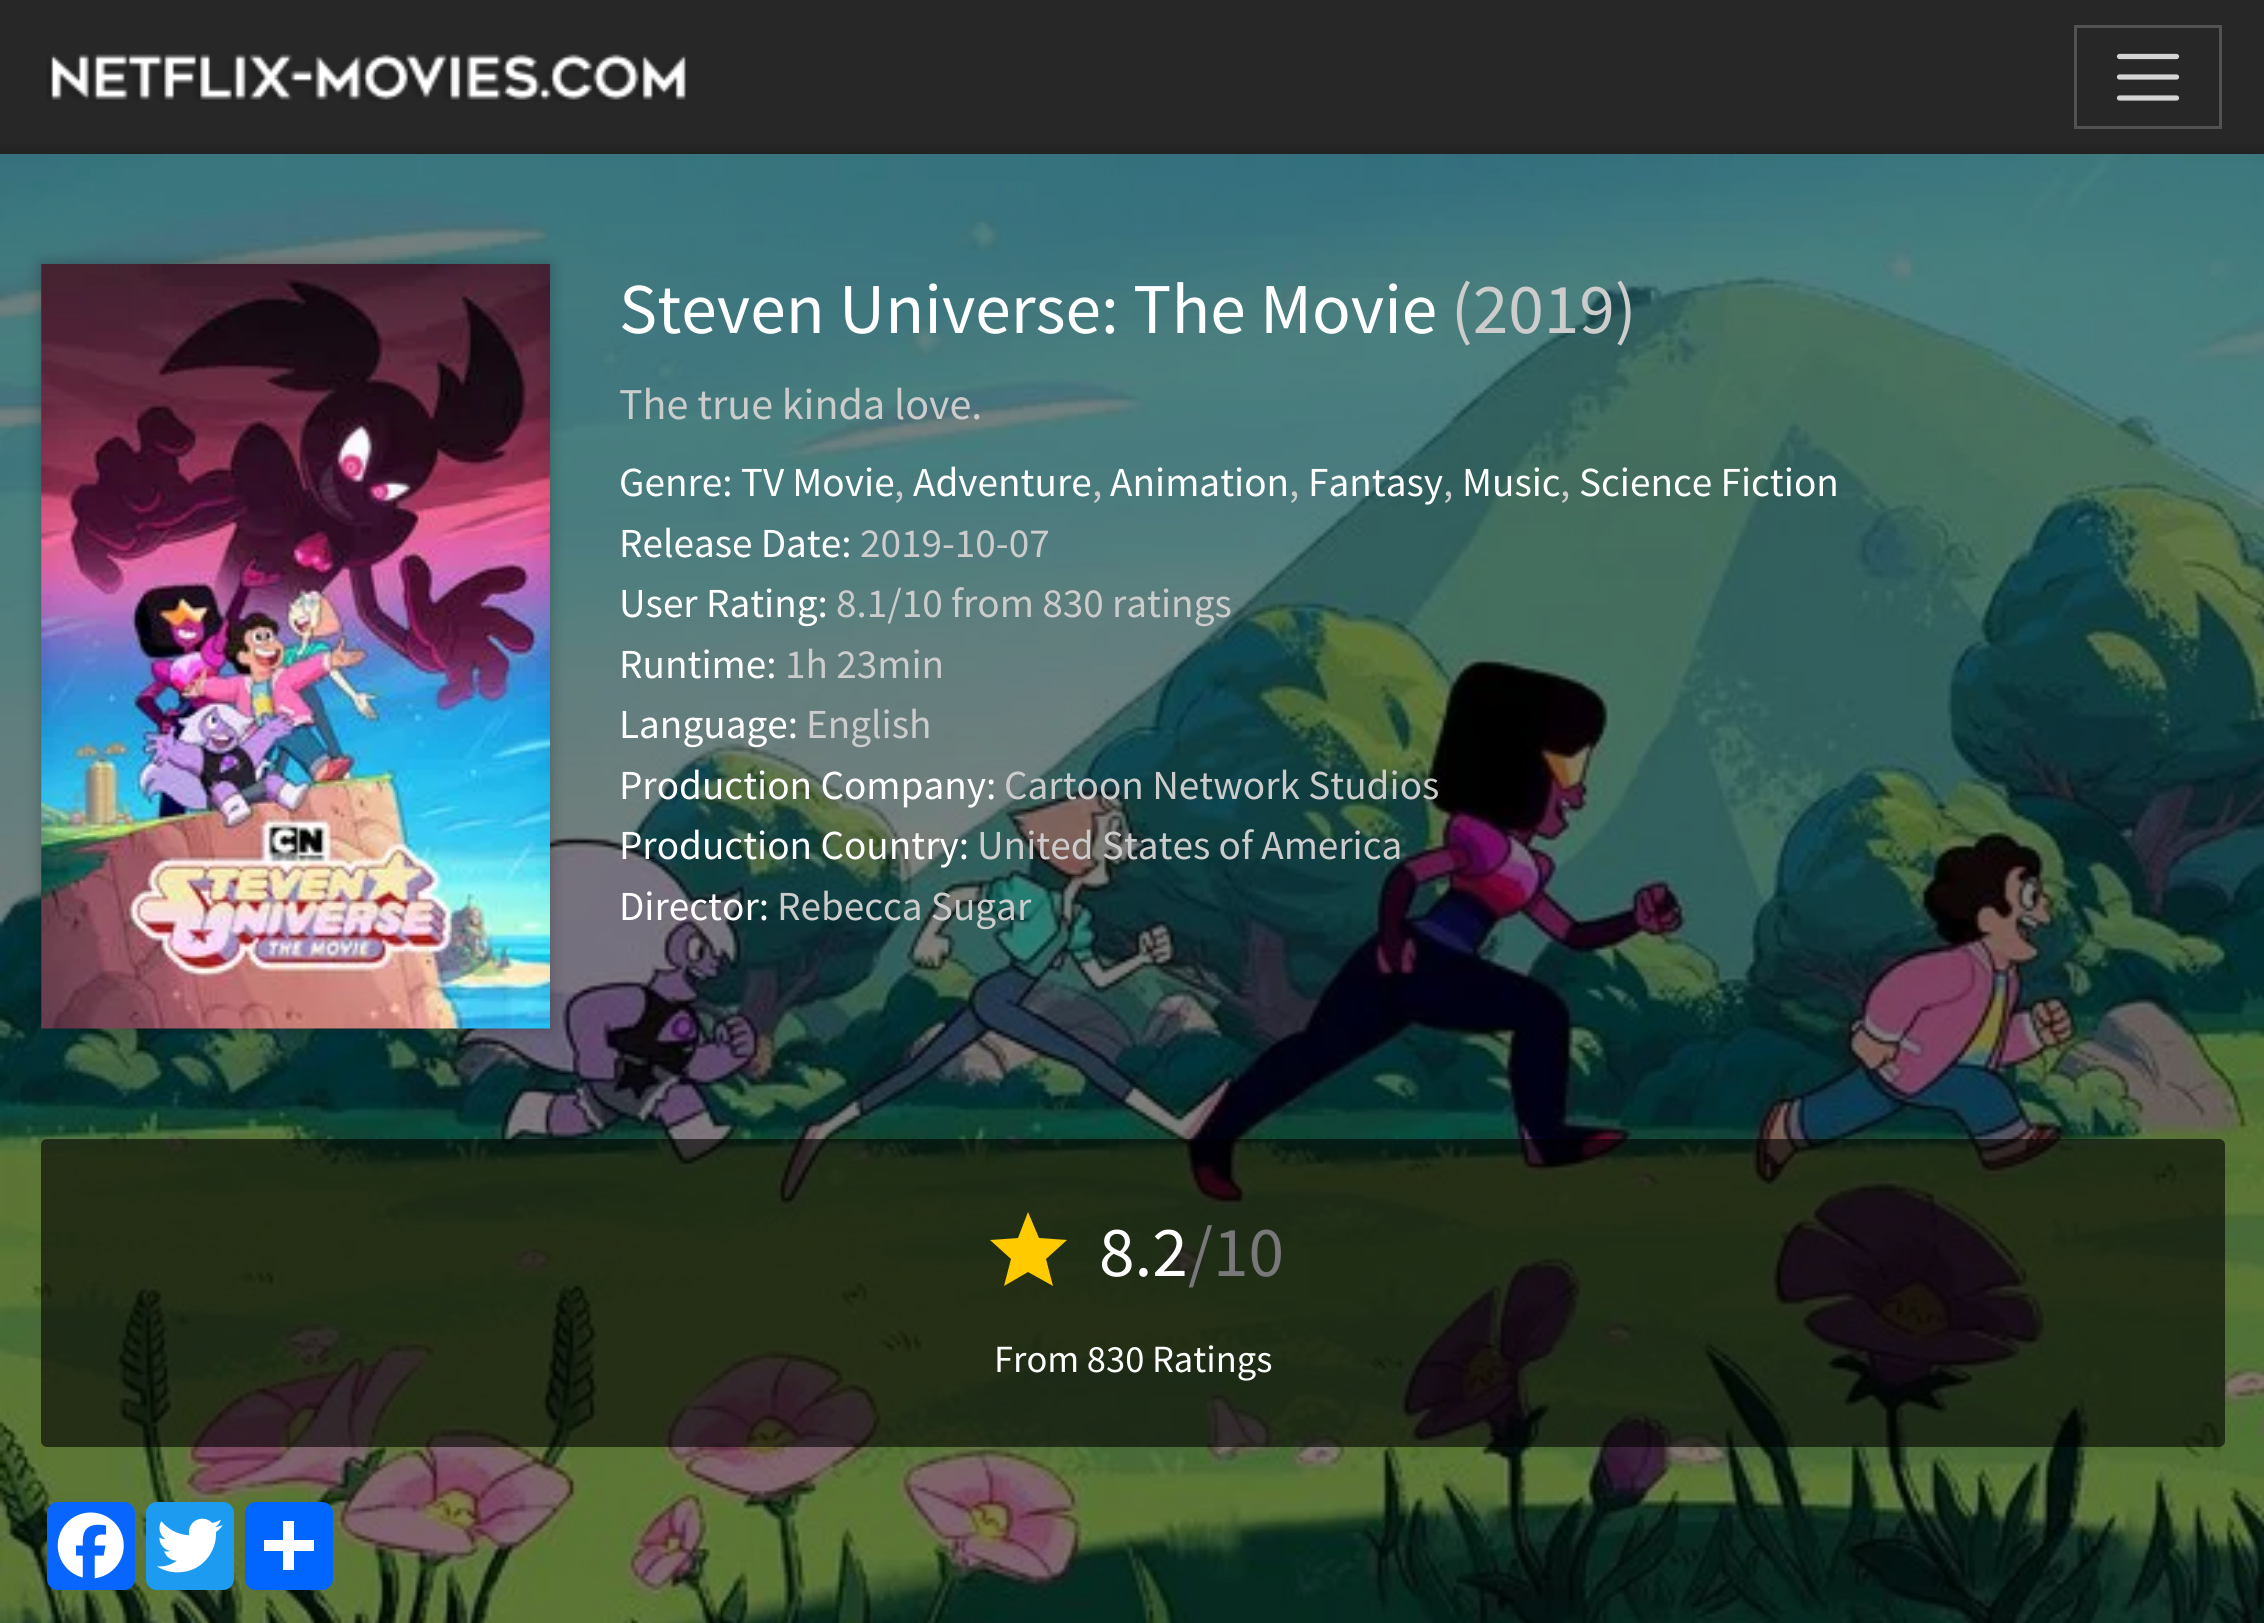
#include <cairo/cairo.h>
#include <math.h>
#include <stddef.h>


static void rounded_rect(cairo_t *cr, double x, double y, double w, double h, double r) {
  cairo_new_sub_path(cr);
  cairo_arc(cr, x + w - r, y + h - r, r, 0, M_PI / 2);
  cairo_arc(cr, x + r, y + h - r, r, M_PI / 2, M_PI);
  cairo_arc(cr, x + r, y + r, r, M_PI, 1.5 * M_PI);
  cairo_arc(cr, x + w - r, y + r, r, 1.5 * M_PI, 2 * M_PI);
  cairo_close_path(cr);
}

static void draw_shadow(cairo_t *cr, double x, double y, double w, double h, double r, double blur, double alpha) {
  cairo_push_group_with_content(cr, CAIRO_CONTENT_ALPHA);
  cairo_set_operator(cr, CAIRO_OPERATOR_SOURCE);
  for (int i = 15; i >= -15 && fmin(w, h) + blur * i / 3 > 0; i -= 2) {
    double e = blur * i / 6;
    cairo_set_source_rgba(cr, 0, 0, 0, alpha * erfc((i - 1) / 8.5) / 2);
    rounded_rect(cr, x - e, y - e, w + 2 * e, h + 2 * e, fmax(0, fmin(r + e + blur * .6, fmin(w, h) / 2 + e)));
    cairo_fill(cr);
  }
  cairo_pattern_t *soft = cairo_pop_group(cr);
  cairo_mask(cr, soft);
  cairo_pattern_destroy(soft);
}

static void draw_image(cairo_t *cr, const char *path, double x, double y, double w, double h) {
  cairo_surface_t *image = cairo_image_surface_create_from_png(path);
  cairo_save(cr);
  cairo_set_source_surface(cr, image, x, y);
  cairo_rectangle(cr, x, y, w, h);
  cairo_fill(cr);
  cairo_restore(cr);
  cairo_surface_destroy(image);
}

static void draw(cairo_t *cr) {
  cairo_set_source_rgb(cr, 39 / 255.0, 39 / 255.0, 39 / 255.0);
  cairo_paint(cr);
  draw_image(cr, "images/1.png", 46, 54, 640, 48);
  cairo_rectangle(cr, 2075.5, 26.5, 145, 101);
  cairo_set_source_rgb(cr, 82 / 255.0, 82 / 255.0, 82 / 255.0);
  cairo_set_line_width(cr, 3);
  cairo_stroke(cr);
  cairo_new_path(cr);
  cairo_move_to(cr, 2119.5, 56.5);
  cairo_line_to(cr, 2176.5, 56.5);
  cairo_move_to(cr, 2119.5, 77);
  cairo_line_to(cr, 2176.5, 77);
  cairo_move_to(cr, 2119.5, 98);
  cairo_line_to(cr, 2176.5, 98);
  cairo_set_source_rgb(cr, 212 / 255.0, 212 / 255.0, 212 / 255.0);
  cairo_set_line_width(cr, 5.2);
  cairo_set_line_cap(cr, CAIRO_LINE_CAP_ROUND);
  cairo_stroke(cr);
  cairo_set_source_rgb(cr, 0, 0, 0);
  draw_shadow(cr, 0, 154, 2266, 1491, 0, 8, 0.27);
  draw_image(cr, "images/2.png", 0, 154, 2264, 1469);
  draw_shadow(cr, 41, 264, 509, 765, 0, 8, 0.27);
  draw_image(cr, "images/3.png", 41, 264, 509, 765);
  cairo_set_source_rgba(cr, 0, 0, 0, 0.6);
  rounded_rect(cr, 41, 1139, 2184, 308, 6);
  cairo_fill(cr);
  cairo_set_source_rgb(cr, 1, 203 / 255.0, 0);
  cairo_new_path(cr);
  cairo_move_to(cr, 1028, 1272);
  cairo_line_to(cr, 1004, 1286);
  cairo_line_to(cr, 1011, 1259);
  cairo_line_to(cr, 990, 1240);
  cairo_line_to(cr, 1018, 1238);
  cairo_line_to(cr, 1028, 1212);
  cairo_line_to(cr, 1039, 1238);
  cairo_line_to(cr, 1067, 1240);
  cairo_line_to(cr, 1046, 1259);
  cairo_line_to(cr, 1053, 1286);
  cairo_close_path(cr);
  cairo_fill(cr);
  cairo_set_source_rgb(cr, 8 / 255.0, 102 / 255.0, 1);
  rounded_rect(cr, 47, 1502, 88, 88, 11);
  cairo_fill(cr);
  draw_image(cr, "images/4.png", 57, 1512, 67, 67);
  cairo_set_source_rgb(cr, 29 / 255.0, 155 / 255.0, 240 / 255.0);
  rounded_rect(cr, 146, 1502, 88, 88, 11);
  cairo_fill(cr);
  draw_image(cr, "images/5.png", 157, 1518, 66, 55);
  cairo_set_source_rgb(cr, 1 / 255.0, 102 / 255.0, 1);
  rounded_rect(cr, 245, 1502, 88, 88, 11);
  cairo_fill(cr);
  cairo_set_source_rgb(cr, 1, 1, 1);
  cairo_rectangle(cr, 283, 1521, 11, 49);
  cairo_fill(cr);
  cairo_rectangle(cr, 264, 1540, 50, 11);
  cairo_fill(cr);
  cairo_select_font_face(cr, "Source Sans Pro", CAIRO_FONT_SLANT_NORMAL, CAIRO_FONT_WEIGHT_NORMAL);
  cairo_set_font_size(cr, 71.5);
  cairo_move_to(cr, 619, 333);
  cairo_show_text(cr, "Steven Universe: The Movie");
  cairo_set_source_rgb(cr, 204 / 255.0, 204 / 255.0, 204 / 255.0);
  cairo_move_to(cr, 1451, 333);
  cairo_show_text(cr, "(2019)");
  cairo_set_font_size(cr, 44);
  cairo_move_to(cr, 619, 419);
  cairo_show_text(cr, "The true kinda love.");
  cairo_set_font_size(cr, 41.25);
  cairo_set_source_rgb(cr, 1, 1, 1);
  cairo_move_to(cr, 619, 496);
  cairo_show_text(cr, "Genre: TV Movie");
  cairo_set_source_rgb(cr, 204 / 255.0, 204 / 255.0, 204 / 255.0);
  cairo_move_to(cr, 894, 496);
  cairo_show_text(cr, ",");
  cairo_set_source_rgb(cr, 1, 1, 1);
  cairo_move_to(cr, 913, 496);
  cairo_show_text(cr, "Adventure");
  cairo_set_source_rgb(cr, 204 / 255.0, 204 / 255.0, 204 / 255.0);
  cairo_move_to(cr, 1092, 496);
  cairo_show_text(cr, ",");
  cairo_set_source_rgb(cr, 1, 1, 1);
  cairo_move_to(cr, 1110, 496);
  cairo_show_text(cr, "Animation");
  cairo_set_source_rgb(cr, 204 / 255.0, 204 / 255.0, 204 / 255.0);
  cairo_move_to(cr, 1289, 496);
  cairo_show_text(cr, ",");
  cairo_set_source_rgb(cr, 1, 1, 1);
  cairo_move_to(cr, 1308, 496);
  cairo_show_text(cr, "Fantasy");
  cairo_set_source_rgb(cr, 204 / 255.0, 204 / 255.0, 204 / 255.0);
  cairo_move_to(cr, 1443, 496);
  cairo_show_text(cr, ",");
  cairo_set_source_rgb(cr, 1, 1, 1);
  cairo_move_to(cr, 1462, 496);
  cairo_show_text(cr, "Music");
  cairo_set_source_rgb(cr, 204 / 255.0, 204 / 255.0, 204 / 255.0);
  cairo_move_to(cr, 1560, 496);
  cairo_show_text(cr, ",");
  cairo_set_source_rgb(cr, 1, 1, 1);
  cairo_move_to(cr, 1579, 496);
  cairo_show_text(cr, "Science Fiction");
  cairo_move_to(cr, 619, 557);
  cairo_show_text(cr, "Release Date:");
  cairo_set_source_rgb(cr, 204 / 255.0, 204 / 255.0, 204 / 255.0);
  cairo_move_to(cr, 860, 557);
  cairo_show_text(cr, "2019-10-07");
  cairo_set_source_rgb(cr, 1, 1, 1);
  cairo_move_to(cr, 619, 617);
  cairo_show_text(cr, "User Rating:");
  cairo_set_source_rgb(cr, 204 / 255.0, 204 / 255.0, 204 / 255.0);
  cairo_move_to(cr, 836, 617);
  cairo_show_text(cr, "8.1/10 from 830 ratings");
  cairo_set_source_rgb(cr, 1, 1, 1);
  cairo_move_to(cr, 619, 678);
  cairo_show_text(cr, "Runtime:");
  cairo_set_source_rgb(cr, 204 / 255.0, 204 / 255.0, 204 / 255.0);
  cairo_move_to(cr, 785, 678);
  cairo_show_text(cr, "1h 23min");
  cairo_set_source_rgb(cr, 1, 1, 1);
  cairo_move_to(cr, 619, 738);
  cairo_show_text(cr, "Language:");
  cairo_set_source_rgb(cr, 204 / 255.0, 204 / 255.0, 204 / 255.0);
  cairo_move_to(cr, 806, 738);
  cairo_show_text(cr, "English");
  cairo_set_source_rgb(cr, 1, 1, 1);
  cairo_move_to(cr, 619, 799);
  cairo_show_text(cr, "Production Company:");
  cairo_set_source_rgb(cr, 204 / 255.0, 204 / 255.0, 204 / 255.0);
  cairo_move_to(cr, 1004, 799);
  cairo_show_text(cr, "Cartoon Network Studios");
  cairo_set_source_rgb(cr, 1, 1, 1);
  cairo_move_to(cr, 619, 859);
  cairo_show_text(cr, "Production Country:");
  cairo_set_source_rgb(cr, 204 / 255.0, 204 / 255.0, 204 / 255.0);
  cairo_move_to(cr, 977, 859);
  cairo_show_text(cr, "United States of America");
  cairo_set_source_rgb(cr, 1, 1, 1);
  cairo_move_to(cr, 619, 920);
  cairo_show_text(cr, "Director:");
  cairo_set_source_rgb(cr, 204 / 255.0, 204 / 255.0, 204 / 255.0);
  cairo_move_to(cr, 777, 920);
  cairo_show_text(cr, "Rebecca Sugar");
  cairo_set_font_size(cr, 71.5);
  cairo_set_source_rgb(cr, 1, 1, 1);
  cairo_move_to(cr, 1099, 1276);
  cairo_show_text(cr, "8.2");
  cairo_set_source_rgb(cr, 120 / 255.0, 120 / 255.0, 120 / 255.0);
  cairo_move_to(cr, 1188, 1276);
  cairo_show_text(cr, "/10");
  cairo_set_font_size(cr, 38.5);
  cairo_set_source_rgb(cr, 1, 1, 1);
  cairo_move_to(cr, 994, 1372);
  cairo_show_text(cr, "From 830 Ratings");
}

int main(void) {
  cairo_surface_t *surface = cairo_image_surface_create(CAIRO_FORMAT_RGB24, 2264, 1623);
  cairo_t *cr = cairo_create(surface);
  cairo_font_options_t *options = cairo_font_options_create();
  cairo_font_options_set_hint_metrics(options, CAIRO_HINT_METRICS_OFF);
  cairo_font_options_set_hint_style(options, CAIRO_HINT_STYLE_NONE);
  cairo_set_font_options(cr, options);
  cairo_set_miter_limit(cr, 4);
  draw(cr);
  cairo_surface_write_to_png(surface, "out.png");
  cairo_font_options_destroy(options);
  cairo_destroy(cr);
  cairo_surface_destroy(surface);
  return 0;
}
